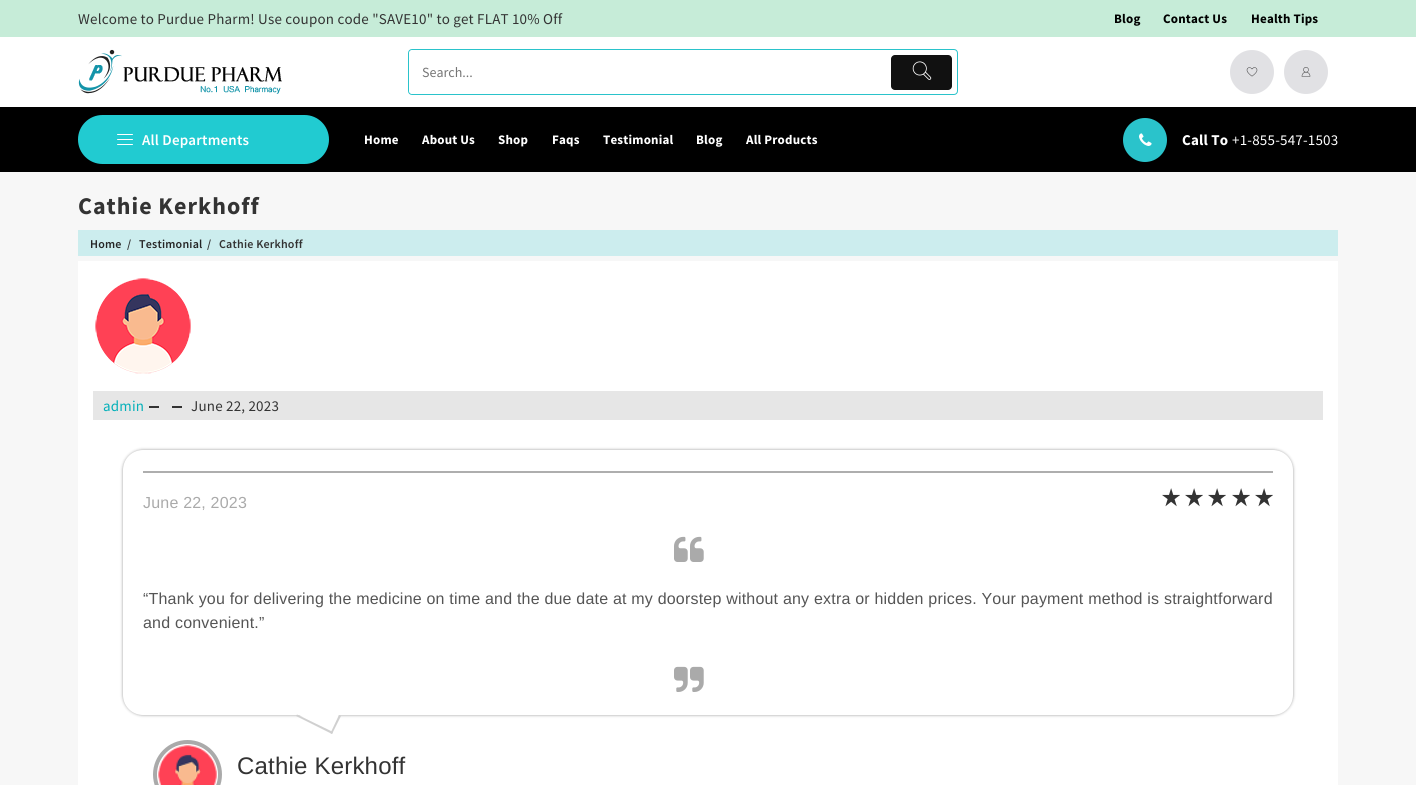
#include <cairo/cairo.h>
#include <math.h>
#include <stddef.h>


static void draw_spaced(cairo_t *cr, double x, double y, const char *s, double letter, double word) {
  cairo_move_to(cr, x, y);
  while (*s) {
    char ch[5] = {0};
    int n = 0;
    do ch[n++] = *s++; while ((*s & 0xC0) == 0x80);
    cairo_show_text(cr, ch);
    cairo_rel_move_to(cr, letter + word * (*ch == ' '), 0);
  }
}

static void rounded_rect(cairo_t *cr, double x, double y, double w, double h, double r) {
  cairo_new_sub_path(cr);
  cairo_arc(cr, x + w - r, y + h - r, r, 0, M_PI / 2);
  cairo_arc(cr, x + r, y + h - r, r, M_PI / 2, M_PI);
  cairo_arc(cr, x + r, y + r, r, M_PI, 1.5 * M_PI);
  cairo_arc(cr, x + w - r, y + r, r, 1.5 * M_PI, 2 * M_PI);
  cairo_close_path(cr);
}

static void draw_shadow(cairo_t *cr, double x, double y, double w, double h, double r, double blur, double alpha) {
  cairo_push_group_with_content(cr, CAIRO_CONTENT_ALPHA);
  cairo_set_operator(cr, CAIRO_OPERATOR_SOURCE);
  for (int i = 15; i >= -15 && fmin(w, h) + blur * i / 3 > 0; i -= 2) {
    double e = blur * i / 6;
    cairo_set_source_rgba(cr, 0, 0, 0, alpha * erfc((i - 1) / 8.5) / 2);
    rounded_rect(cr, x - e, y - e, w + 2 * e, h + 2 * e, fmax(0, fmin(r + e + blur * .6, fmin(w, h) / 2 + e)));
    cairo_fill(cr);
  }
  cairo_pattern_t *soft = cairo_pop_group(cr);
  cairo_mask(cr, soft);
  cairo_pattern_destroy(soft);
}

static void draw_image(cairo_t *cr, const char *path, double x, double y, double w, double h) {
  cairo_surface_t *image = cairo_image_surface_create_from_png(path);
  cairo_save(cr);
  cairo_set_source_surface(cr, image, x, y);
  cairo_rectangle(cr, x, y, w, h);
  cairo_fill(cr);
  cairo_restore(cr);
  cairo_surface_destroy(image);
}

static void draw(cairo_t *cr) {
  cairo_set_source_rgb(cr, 247 / 255.0, 247 / 255.0, 247 / 255.0);
  cairo_paint(cr);
  cairo_set_source_rgb(cr, 1, 1, 1);
  cairo_rectangle(cr, 0, 37, 1416, 70);
  cairo_fill(cr);
  cairo_set_source_rgb(cr, 198 / 255.0, 236 / 255.0, 216 / 255.0);
  cairo_rectangle(cr, 0, 0, 1416, 37);
  cairo_fill(cr);
  draw_image(cr, "images/1.png", 78, 49, 204, 45);
  rounded_rect(cr, 408.5, 49.5, 549, 45, 3.5);
  cairo_set_source_rgb(cr, 42 / 255.0, 195 / 255.0, 203 / 255.0);
  cairo_set_line_width(cr, 1);
  cairo_stroke(cr);
  cairo_set_source_rgb(cr, 1, 1, 1);
  rounded_rect(cr, 409, 50, 478, 44, 4);
  cairo_fill(cr);
  cairo_set_source_rgb(cr, 17 / 255.0, 17 / 255.0, 17 / 255.0);
  rounded_rect(cr, 891, 55, 61, 35, 4);
  cairo_fill(cr);
  draw_image(cr, "images/2.png", 912, 61, 20, 19);
  cairo_set_source_rgb(cr, 225 / 255.0, 225 / 255.0, 228 / 255.0);
  cairo_arc(cr, 1252, 72, 22, 0, 2 * M_PI);
  cairo_fill(cr);
  draw_image(cr, "images/3.png", 1246, 67, 12, 10);
  cairo_arc(cr, 1306, 72, 22, 0, 2 * M_PI);
  cairo_fill(cr);
  draw_image(cr, "images/4.png", 1301, 67, 10, 10);
  cairo_set_source_rgb(cr, 0, 0, 0);
  cairo_rectangle(cr, 0, 107, 1416, 65);
  cairo_fill(cr);
  cairo_set_source_rgb(cr, 33 / 255.0, 203 / 255.0, 209 / 255.0);
  rounded_rect(cr, 78, 115, 251, 49, 24.5);
  cairo_fill(cr);
  cairo_set_source_rgb(cr, 1, 1, 1);
  rounded_rect(cr, 117, 134, 16, 1, 0.5);
  cairo_fill(cr);
  rounded_rect(cr, 117, 139, 16, 1, 0.5);
  cairo_fill(cr);
  rounded_rect(cr, 117, 144, 16, 1, 0.5);
  cairo_fill(cr);
  cairo_set_source_rgb(cr, 42 / 255.0, 195 / 255.0, 203 / 255.0);
  cairo_arc(cr, 1145, 140, 22, 0, 2 * M_PI);
  cairo_fill(cr);
  draw_image(cr, "images/5.png", 1139, 133, 13, 13);
  cairo_set_source_rgb(cr, 204 / 255.0, 237 / 255.0, 238 / 255.0);
  cairo_rectangle(cr, 78, 230, 1260, 26);
  cairo_fill(cr);
  cairo_set_source_rgb(cr, 1, 1, 1);
  cairo_rectangle(cr, 78, 261, 1260, 524);
  cairo_fill(cr);
  draw_image(cr, "images/6.png", 95, 278, 96, 96);
  cairo_set_source_rgb(cr, 230 / 255.0, 230 / 255.0, 230 / 255.0);
  cairo_rectangle(cr, 93, 391, 1230, 29);
  cairo_fill(cr);
  cairo_set_source_rgb(cr, 51 / 255.0, 51 / 255.0, 51 / 255.0);
  cairo_rectangle(cr, 149, 406, 10, 2);
  cairo_fill(cr);
  cairo_rectangle(cr, 172, 406, 10, 2);
  cairo_fill(cr);
  cairo_set_source_rgb(cr, 153 / 255.0, 153 / 255.0, 153 / 255.0);
  draw_shadow(cr, 123, 450, 1170, 265, 20, 1.5, 1);
  cairo_set_source_rgb(cr, 1, 1, 1);
  rounded_rect(cr, 123, 450, 1170, 265, 20);
  cairo_fill(cr);
  cairo_set_source_rgb(cr, 174 / 255.0, 174 / 255.0, 174 / 255.0);
  cairo_rectangle(cr, 143, 471, 1130, 2);
  cairo_fill(cr);
  draw_image(cr, "images/7.png", 1162, 488, 18, 19);
  draw_image(cr, "images/7.png", 1185, 488, 18, 19);
  draw_image(cr, "images/7.png", 1208, 488, 18, 19);
  draw_image(cr, "images/7.png", 1232, 488, 18, 19);
  draw_image(cr, "images/7.png", 1255, 488, 18, 19);
  draw_image(cr, "images/8.png", 674, 536, 30, 26);
  draw_image(cr, "images/9.png", 674, 666, 30, 26);
  cairo_set_source_rgb(cr, 1, 1, 1);
  cairo_new_path(cr);
  cairo_move_to(cr, 305, 698);
  cairo_line_to(cr, 339, 715);
  cairo_line_to(cr, 331, 731);
  cairo_line_to(cr, 297, 714);
  cairo_close_path(cr);
  cairo_fill(cr);
  cairo_set_source_rgb(cr, 208 / 255.0, 208 / 255.0, 208 / 255.0);
  cairo_new_path(cr);
  cairo_move_to(cr, 339, 715);
  cairo_line_to(cr, 341, 716);
  cairo_line_to(cr, 332, 734);
  cairo_line_to(cr, 330.5, 733);
  cairo_close_path(cr);
  cairo_fill(cr);
  cairo_new_path(cr);
  cairo_move_to(cr, 297, 714.5);
  cairo_line_to(cr, 333, 732);
  cairo_line_to(cr, 332, 734);
  cairo_line_to(cr, 296, 716);
  cairo_close_path(cr);
  cairo_fill(cr);
  cairo_arc(cr, 187.5, 774.5, 32.5, 0, 2 * M_PI);
  cairo_set_source_rgb(cr, 170 / 255.0, 170 / 255.0, 170 / 255.0);
  cairo_set_line_width(cr, 4);
  cairo_stroke(cr);
  draw_image(cr, "images/10.png", 158, 745, 59, 40);
  cairo_select_font_face(cr, "Source Sans Pro", CAIRO_FONT_SLANT_NORMAL, CAIRO_FONT_WEIGHT_NORMAL);
  cairo_set_font_size(cr, 15);
  cairo_set_source_rgb(cr, 51 / 255.0, 51 / 255.0, 51 / 255.0);
  draw_spaced(cr, 78, 24, "Welcome to Purdue Pharm! Use coupon code \"SAVE10\" to get FLAT 10% Off", 0.2, 0);
  cairo_select_font_face(cr, "Source Sans Pro", CAIRO_FONT_SLANT_NORMAL, CAIRO_FONT_WEIGHT_BOLD);
  cairo_set_font_size(cr, 13);
  cairo_set_source_rgb(cr, 0, 0, 0);
  draw_spaced(cr, 1114, 23, "Blog", 0.2, 0);
  draw_spaced(cr, 1163, 23, "Contact Us", 0.2, 0);
  draw_spaced(cr, 1251, 23, "Health Tips", 0.2, 0);
  cairo_select_font_face(cr, "Source Sans Pro", CAIRO_FONT_SLANT_NORMAL, CAIRO_FONT_WEIGHT_NORMAL);
  cairo_set_font_size(cr, 14);
  cairo_set_source_rgb(cr, 117 / 255.0, 117 / 255.0, 117 / 255.0);
  cairo_move_to(cr, 422, 77);
  cairo_show_text(cr, "Search...");
  cairo_select_font_face(cr, "Source Sans Pro SemiBold", CAIRO_FONT_SLANT_NORMAL, CAIRO_FONT_WEIGHT_NORMAL);
  cairo_set_font_size(cr, 15);
  cairo_set_source_rgb(cr, 1, 1, 1);
  draw_spaced(cr, 142, 145, "All Departments", 0.2, 0);
  cairo_select_font_face(cr, "Source Sans Pro", CAIRO_FONT_SLANT_NORMAL, CAIRO_FONT_WEIGHT_BOLD);
  cairo_set_font_size(cr, 13);
  draw_spaced(cr, 364, 144, "Home", 0.2, 0);
  draw_spaced(cr, 422, 144, "About Us", 0.2, 0);
  draw_spaced(cr, 498, 144, "Shop", 0.2, 0);
  draw_spaced(cr, 552, 144, "Faqs", 0.2, 0);
  draw_spaced(cr, 603, 144, "Testimonial", 0.2, 0);
  draw_spaced(cr, 696, 144, "Blog", 0.2, 0);
  draw_spaced(cr, 746, 144, "All Products", 0.2, 0);
  cairo_set_font_size(cr, 15);
  draw_spaced(cr, 1182, 145, "Call To", 0.2, 0);
  cairo_select_font_face(cr, "Source Sans Pro", CAIRO_FONT_SLANT_NORMAL, CAIRO_FONT_WEIGHT_NORMAL);
  draw_spaced(cr, 1232, 145, "+1-855-547-1503", 0.2, 0);
  cairo_select_font_face(cr, "Source Sans Pro", CAIRO_FONT_SLANT_NORMAL, CAIRO_FONT_WEIGHT_BOLD);
  cairo_set_font_size(cr, 24);
  cairo_set_source_rgb(cr, 51 / 255.0, 51 / 255.0, 51 / 255.0);
  draw_spaced(cr, 78, 214, "Cathie Kerkhoff", 1, 0);
  cairo_select_font_face(cr, "Source Sans Pro SemiBold", CAIRO_FONT_SLANT_NORMAL, CAIRO_FONT_WEIGHT_NORMAL);
  cairo_set_font_size(cr, 12);
  cairo_set_source_rgb(cr, 37 / 255.0, 37 / 255.0, 37 / 255.0);
  draw_spaced(cr, 90, 248, "Home", 0.2, 0);
  cairo_set_source_rgb(cr, 51 / 255.0, 51 / 255.0, 51 / 255.0);
  draw_spaced(cr, 127, 248, "/", 0.2, 0);
  cairo_set_source_rgb(cr, 37 / 255.0, 37 / 255.0, 37 / 255.0);
  draw_spaced(cr, 139, 248, "Testimonial", 0.2, 0);
  cairo_set_source_rgb(cr, 51 / 255.0, 51 / 255.0, 51 / 255.0);
  draw_spaced(cr, 207, 248, "/", 0.2, 0);
  draw_spaced(cr, 219, 248, "Cathie Kerkhoff", 0.2, 0);
  cairo_select_font_face(cr, "Source Sans Pro", CAIRO_FONT_SLANT_NORMAL, CAIRO_FONT_WEIGHT_NORMAL);
  cairo_set_font_size(cr, 15);
  cairo_set_source_rgb(cr, 2 / 255.0, 176 / 255.0, 185 / 255.0);
  draw_spaced(cr, 103, 411, "admin", 0.2, 0);
  cairo_set_source_rgb(cr, 51 / 255.0, 51 / 255.0, 51 / 255.0);
  draw_spaced(cr, 191, 411, "June 22, 2023", 0.2, 0);
  cairo_select_font_face(cr, "Liberation Sans", CAIRO_FONT_SLANT_NORMAL, CAIRO_FONT_WEIGHT_NORMAL);
  cairo_set_font_size(cr, 16);
  cairo_set_source_rgb(cr, 170 / 255.0, 170 / 255.0, 170 / 255.0);
  draw_spaced(cr, 143, 508, "June 22, 2023", 0.2, 0);
  cairo_set_source_rgb(cr, 85 / 255.0, 85 / 255.0, 85 / 255.0);
  draw_spaced(cr, 143, 604, "“Thank you for delivering the medicine on time and the due date at my doorstep without any extra or hidden prices. Your payment method is straightforward", 0.2, 0);
  draw_spaced(cr, 143, 628, "and convenient.”", 0.2, 0);
  cairo_set_font_size(cr, 24);
  cairo_set_source_rgb(cr, 51 / 255.0, 51 / 255.0, 51 / 255.0);
  draw_spaced(cr, 237, 774, "Cathie Kerkhoff", 0.2, 0);
}

int main(void) {
  cairo_surface_t *surface = cairo_image_surface_create(CAIRO_FORMAT_RGB24, 1416, 785);
  cairo_t *cr = cairo_create(surface);
  cairo_font_options_t *options = cairo_font_options_create();
  cairo_font_options_set_hint_metrics(options, CAIRO_HINT_METRICS_OFF);
  cairo_font_options_set_hint_style(options, CAIRO_HINT_STYLE_NONE);
  cairo_set_font_options(cr, options);
  cairo_set_miter_limit(cr, 4);
  draw(cr);
  cairo_surface_write_to_png(surface, "out.png");
  cairo_font_options_destroy(options);
  cairo_destroy(cr);
  cairo_surface_destroy(surface);
  return 0;
}
